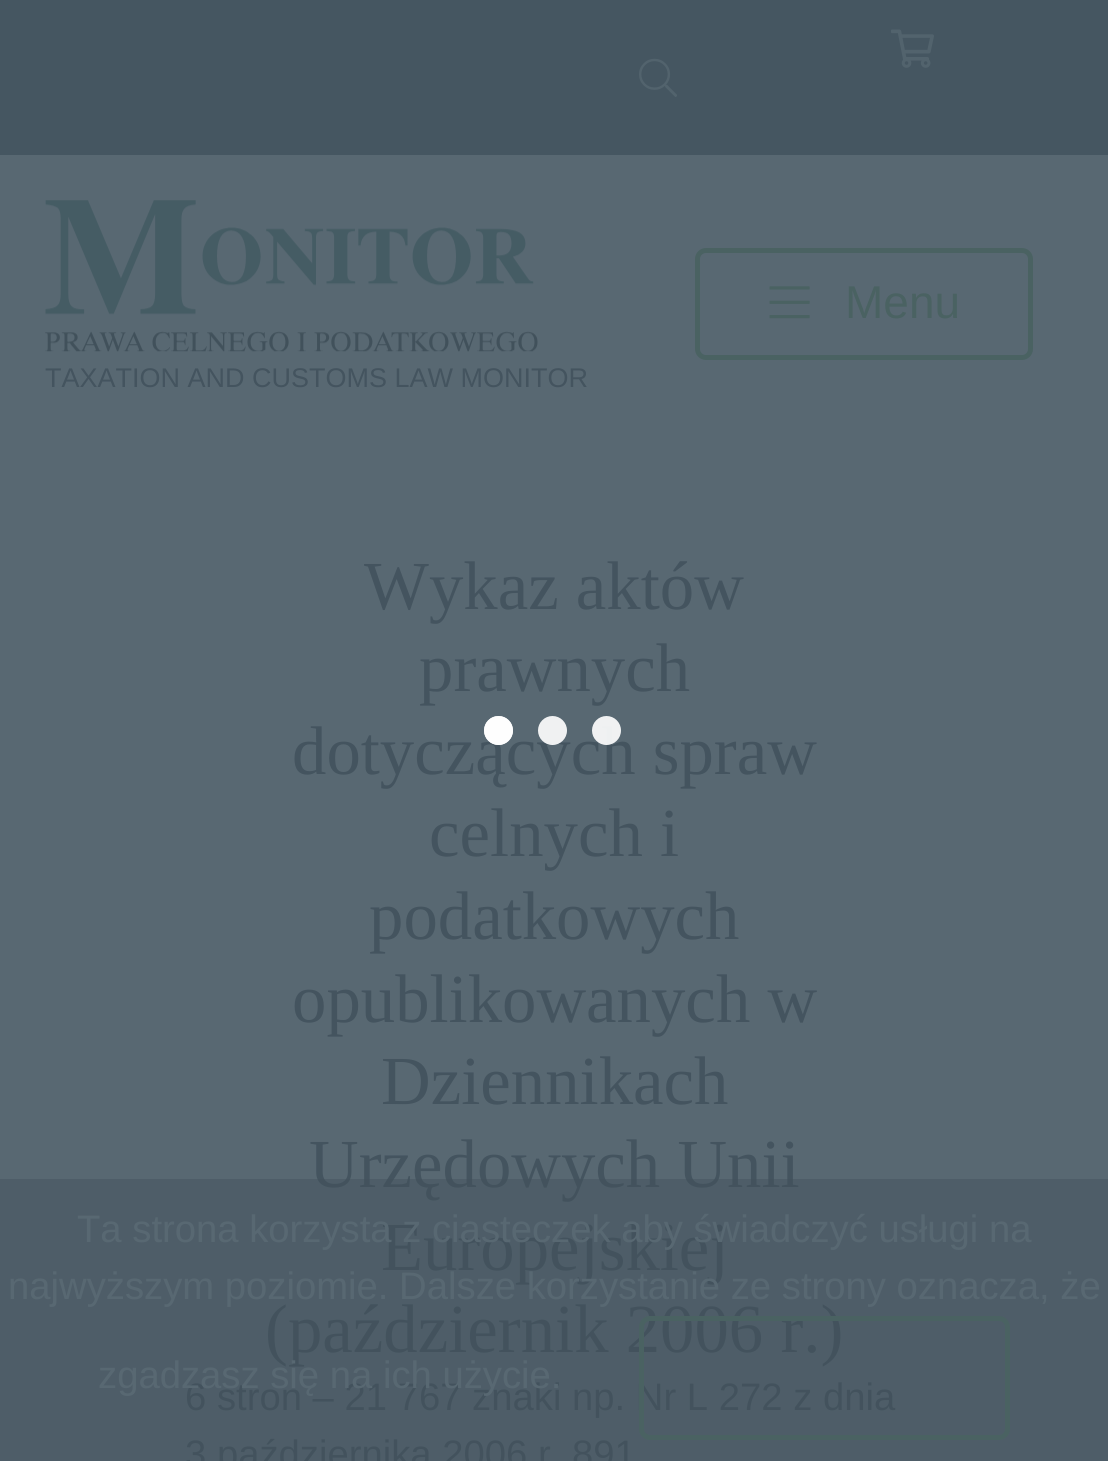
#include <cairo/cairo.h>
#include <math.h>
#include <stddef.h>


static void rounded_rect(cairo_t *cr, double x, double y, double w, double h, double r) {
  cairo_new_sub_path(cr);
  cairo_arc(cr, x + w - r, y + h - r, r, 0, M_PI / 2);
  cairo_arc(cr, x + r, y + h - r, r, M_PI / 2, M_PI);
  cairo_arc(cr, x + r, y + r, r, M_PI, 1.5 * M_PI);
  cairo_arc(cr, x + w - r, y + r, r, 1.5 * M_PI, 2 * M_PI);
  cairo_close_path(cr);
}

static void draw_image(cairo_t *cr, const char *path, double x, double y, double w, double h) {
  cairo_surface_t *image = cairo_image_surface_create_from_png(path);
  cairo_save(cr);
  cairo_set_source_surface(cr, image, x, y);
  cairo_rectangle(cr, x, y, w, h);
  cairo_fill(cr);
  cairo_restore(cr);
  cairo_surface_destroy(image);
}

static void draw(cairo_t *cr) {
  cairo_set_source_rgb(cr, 88 / 255.0, 104 / 255.0, 114 / 255.0);
  cairo_paint(cr);
  cairo_set_source_rgb(cr, 69 / 255.0, 86 / 255.0, 97 / 255.0);
  cairo_rectangle(cr, 0, 0, 1108, 155);
  cairo_fill(cr);
  draw_image(cr, "images/1.png", 891, 29, 43, 39);
  draw_image(cr, "images/2.png", 639, 58, 38, 39);
  rounded_rect(cr, 697.5, 250.5, 333, 107, 8.5);
  cairo_set_source_rgb(cr, 74 / 255.0, 98 / 255.0, 98 / 255.0);
  cairo_set_line_width(cr, 5);
  cairo_stroke(cr);
  draw_image(cr, "images/3.png", 769, 286, 41, 33);
  draw_image(cr, "images/4.png", 45, 200, 493, 152);
  cairo_select_font_face(cr, "Liberation Sans", CAIRO_FONT_SLANT_NORMAL, CAIRO_FONT_WEIGHT_NORMAL);
  cairo_set_font_size(cr, 46);
  cairo_move_to(cr, 845, 318);
  cairo_show_text(cr, "Menu");
  cairo_set_font_size(cr, 27);
  cairo_set_source_rgb(cr, 68 / 255.0, 84 / 255.0, 95 / 255.0);
  cairo_move_to(cr, 45, 387);
  cairo_show_text(cr, "TAXATION AND CUSTOMS LAW MONITOR");
  cairo_select_font_face(cr, "Liberation Serif", CAIRO_FONT_SLANT_NORMAL, CAIRO_FONT_WEIGHT_NORMAL);
  cairo_set_font_size(cr, 68.75);
  cairo_move_to(cr, 364, 609);
  cairo_show_text(cr, "Wykaz aktów");
  cairo_move_to(cr, 419, 691);
  cairo_show_text(cr, "prawnych");
  cairo_move_to(cr, 292, 774);
  cairo_show_text(cr, "dotyczących spraw");
  cairo_move_to(cr, 429, 856);
  cairo_show_text(cr, "celnych i");
  cairo_move_to(cr, 369, 939);
  cairo_show_text(cr, "podatkowych");
  cairo_move_to(cr, 292, 1022);
  cairo_show_text(cr, "opublikowanych w");
  cairo_move_to(cr, 381, 1104);
  cairo_show_text(cr, "Dziennikach");
  cairo_move_to(cr, 309, 1187);
  cairo_show_text(cr, "Urzędowych Unii");
  cairo_move_to(cr, 381, 1270);
  cairo_show_text(cr, "Europejskiej");
  cairo_move_to(cr, 265, 1352);
  cairo_show_text(cr, "(październik 2006 r.)");
  cairo_select_font_face(cr, "Liberation Sans", CAIRO_FONT_SLANT_NORMAL, CAIRO_FONT_WEIGHT_NORMAL);
  cairo_set_font_size(cr, 38.25);
  cairo_move_to(cr, 185, 1410);
  cairo_show_text(cr, "6 stron – 21 767 znaki np. Nr L 272 z dnia");
  cairo_move_to(cr, 185, 1467);
  cairo_show_text(cr, "3 października 2006 r. 891");
  cairo_set_source_rgba(cr, 65 / 255.0, 81 / 255.0, 91 / 255.0, 0.46);
  cairo_rectangle(cr, 0, 1179, 1108, 282);
  cairo_fill(cr);
  cairo_set_source_rgb(cr, 88 / 255.0, 104 / 255.0, 114 / 255.0);
  cairo_move_to(cr, 77, 1242);
  cairo_show_text(cr, "Ta strona korzysta z ciasteczek aby świadczyć usługi na");
  cairo_move_to(cr, 8, 1299);
  cairo_show_text(cr, "najwyższym poziomie. Dalsze korzystanie ze strony oznacza, że");
  cairo_move_to(cr, 98, 1388);
  cairo_show_text(cr, "zgadzasz się na ich użycie.");
  rounded_rect(cr, 641.5, 1318.5, 366, 119, 8.5);
  cairo_set_source_rgb(cr, 74 / 255.0, 98 / 255.0, 98 / 255.0);
  cairo_stroke(cr);
  cairo_set_source_rgba(cr, 1, 1, 1, 0.91);
  cairo_arc(cr, 498.5, 730.5, 14.5, 0, 2 * M_PI);
  cairo_fill(cr);
  cairo_arc(cr, 498.5, 730.5, 14.5, 0, 2 * M_PI);
  cairo_fill(cr);
  cairo_arc(cr, 552.5, 730.5, 14.5, 0, 2 * M_PI);
  cairo_fill(cr);
  cairo_arc(cr, 606.5, 730.5, 14.5, 0, 2 * M_PI);
  cairo_fill(cr);
}

int main(void) {
  cairo_surface_t *surface = cairo_image_surface_create(CAIRO_FORMAT_RGB24, 1108, 1461);
  cairo_t *cr = cairo_create(surface);
  cairo_font_options_t *options = cairo_font_options_create();
  cairo_font_options_set_hint_metrics(options, CAIRO_HINT_METRICS_OFF);
  cairo_font_options_set_hint_style(options, CAIRO_HINT_STYLE_NONE);
  cairo_set_font_options(cr, options);
  cairo_set_miter_limit(cr, 4);
  draw(cr);
  cairo_surface_write_to_png(surface, "out.png");
  cairo_font_options_destroy(options);
  cairo_destroy(cr);
  cairo_surface_destroy(surface);
  return 0;
}
